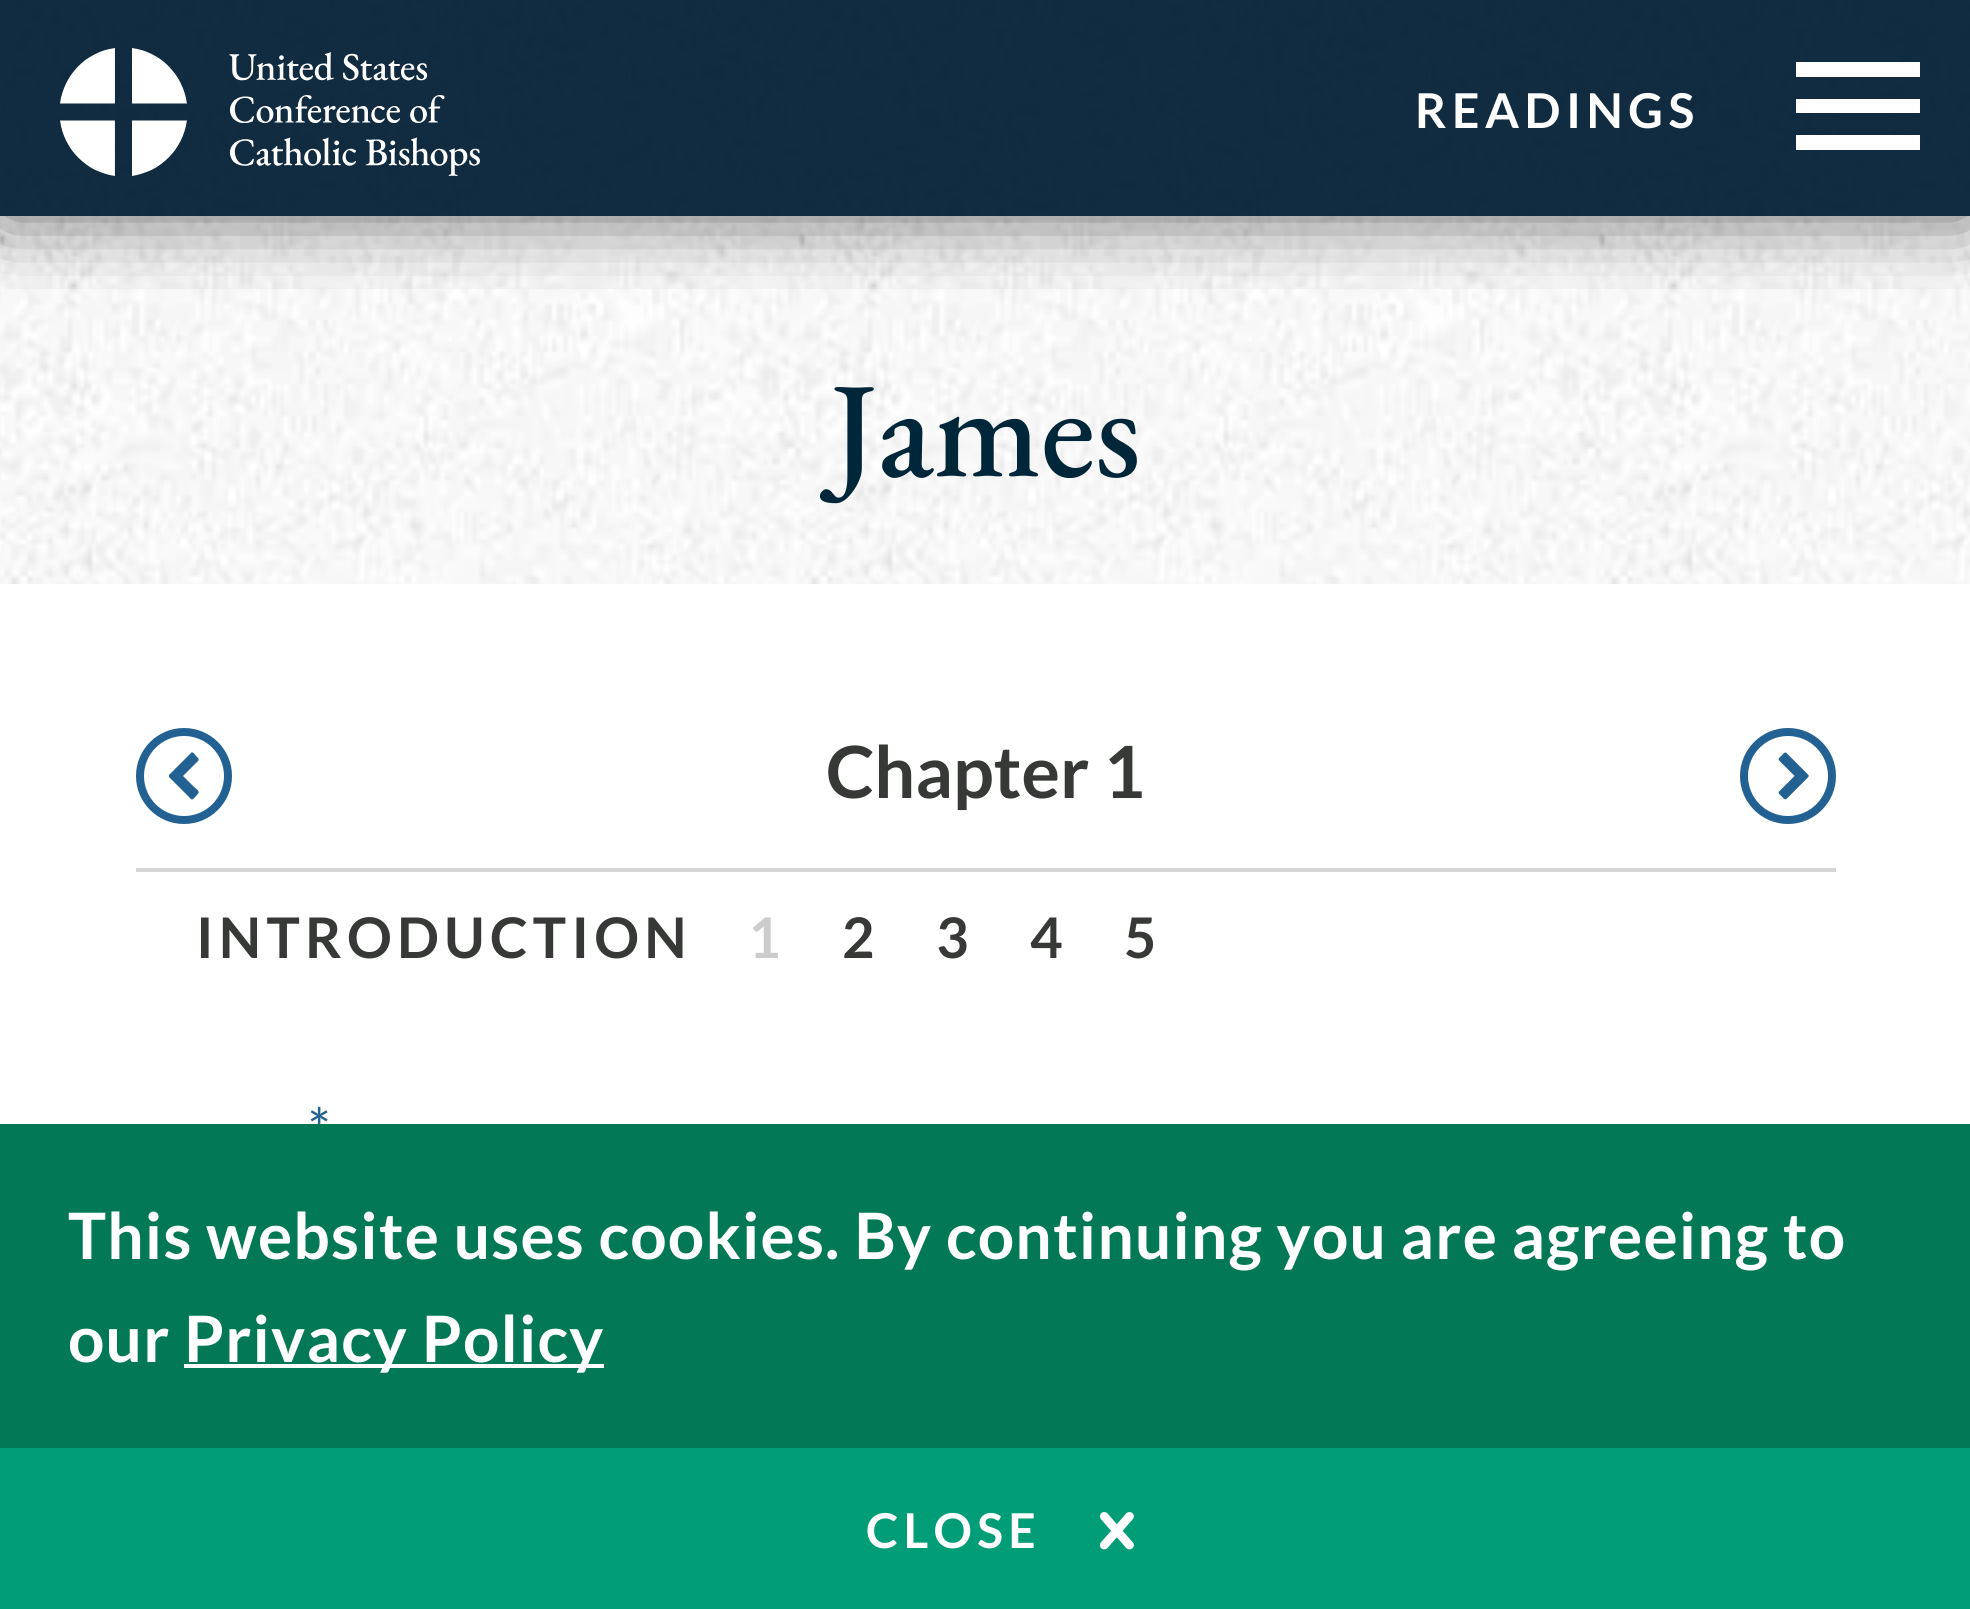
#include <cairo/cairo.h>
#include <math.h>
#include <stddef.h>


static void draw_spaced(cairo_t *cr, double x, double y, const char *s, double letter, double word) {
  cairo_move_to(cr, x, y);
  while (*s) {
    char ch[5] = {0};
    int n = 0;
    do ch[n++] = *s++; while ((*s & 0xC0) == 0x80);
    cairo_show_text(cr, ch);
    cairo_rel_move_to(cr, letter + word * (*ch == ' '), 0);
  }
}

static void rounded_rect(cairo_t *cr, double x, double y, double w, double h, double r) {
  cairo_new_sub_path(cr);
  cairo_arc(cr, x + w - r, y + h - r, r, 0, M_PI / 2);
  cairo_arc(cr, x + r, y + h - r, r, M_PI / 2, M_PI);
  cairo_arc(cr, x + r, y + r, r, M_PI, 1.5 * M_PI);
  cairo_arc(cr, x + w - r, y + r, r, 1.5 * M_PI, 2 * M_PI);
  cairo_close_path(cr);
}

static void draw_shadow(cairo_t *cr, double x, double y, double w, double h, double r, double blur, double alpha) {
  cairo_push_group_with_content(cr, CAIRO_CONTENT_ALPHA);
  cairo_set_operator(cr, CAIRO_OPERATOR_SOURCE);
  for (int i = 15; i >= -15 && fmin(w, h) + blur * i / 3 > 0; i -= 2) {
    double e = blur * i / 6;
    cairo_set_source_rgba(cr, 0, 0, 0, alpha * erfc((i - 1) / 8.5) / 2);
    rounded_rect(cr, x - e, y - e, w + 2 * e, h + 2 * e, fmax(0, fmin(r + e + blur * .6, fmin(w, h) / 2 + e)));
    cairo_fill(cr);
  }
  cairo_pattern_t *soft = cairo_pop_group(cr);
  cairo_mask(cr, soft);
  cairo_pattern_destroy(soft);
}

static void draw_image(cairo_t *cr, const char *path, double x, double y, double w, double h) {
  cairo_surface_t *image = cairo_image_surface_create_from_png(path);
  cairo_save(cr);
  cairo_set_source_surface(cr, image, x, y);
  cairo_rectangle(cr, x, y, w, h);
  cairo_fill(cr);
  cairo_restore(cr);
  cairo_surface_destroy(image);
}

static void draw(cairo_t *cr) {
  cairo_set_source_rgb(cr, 1, 1, 1);
  cairo_paint(cr);
  draw_image(cr, "images/1.png", 0, 0, 1970, 584);
  cairo_save(cr);
  cairo_rectangle(cr, 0, 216, 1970, 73);
  cairo_clip(cr);
  cairo_set_source_rgb(cr, 0, 0, 0);
  draw_shadow(cr, 0, 0, 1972, 216, 0, 40, 0.6);
  cairo_restore(cr);
  cairo_set_source_rgba(cr, 6 / 255.0, 33 / 255.0, 55 / 255.0, 0.95);
  cairo_rectangle(cr, 0, 0, 1970, 216);
  cairo_fill(cr);
  draw_image(cr, "images/2.png", 60, 48, 420, 128);
  cairo_save(cr);
  cairo_rectangle(cr, 1796, 40, 124, 132);
  cairo_clip(cr);
  cairo_set_source_rgb(cr, 1, 1, 1);
  cairo_new_path(cr);
  cairo_move_to(cr, 1796, 150);
  cairo_line_to(cr, 1928, 150);
  cairo_line_to(cr, 1928, 135);
  cairo_line_to(cr, 1796, 135);
  cairo_close_path(cr);
  cairo_move_to(cr, 1796, 113);
  cairo_line_to(cr, 1928, 113);
  cairo_line_to(cr, 1928, 99);
  cairo_line_to(cr, 1796, 99);
  cairo_close_path(cr);
  cairo_move_to(cr, 1796, 62);
  cairo_line_to(cr, 1796, 77);
  cairo_line_to(cr, 1928, 77);
  cairo_line_to(cr, 1928, 62);
  cairo_close_path(cr);
  cairo_fill(cr);
  cairo_restore(cr);
  cairo_set_source_rgb(cr, 214 / 255.0, 214 / 255.0, 214 / 255.0);
  cairo_rectangle(cr, 136, 868, 1700, 4);
  cairo_fill(cr);
  cairo_arc(cr, 184, 776, 44, 0, 2 * M_PI);
  cairo_set_source_rgb(cr, 35 / 255.0, 97 / 255.0, 146 / 255.0);
  cairo_set_line_width(cr, 8);
  cairo_stroke(cr);
  cairo_new_path(cr);
  cairo_move_to(cr, 198, 761);
  cairo_line_to(cr, 183, 776);
  cairo_line_to(cr, 193, 786);
  cairo_curve_to(cr, 197, 790, 201, 791, 197, 795);
  cairo_curve_to(cr, 191, 801, 193, 801, 187, 795);
  cairo_line_to(cr, 169, 777);
  cairo_line_to(cr, 169, 775);
  cairo_line_to(cr, 191, 753);
  cairo_curve_to(cr, 192, 751, 195, 754, 196, 756);
  cairo_curve_to(cr, 197, 757, 200, 759, 198, 761);
  cairo_close_path(cr);
  cairo_fill(cr);
  cairo_arc(cr, 1788, 776, 44, 0, 2 * M_PI);
  cairo_stroke(cr);
  draw_image(cr, "images/3.png", 1778, 752, 31, 48);
  cairo_set_source_rgb(cr, 0, 157 / 255.0, 119 / 255.0);
  cairo_rectangle(cr, 0, 1448, 1970, 161);
  cairo_fill(cr);
  draw_image(cr, "images/4.png", 1100, 1512, 34, 38);
  cairo_select_font_face(cr, "Lato", CAIRO_FONT_SLANT_NORMAL, CAIRO_FONT_WEIGHT_BOLD);
  cairo_set_font_size(cr, 48);
  cairo_set_source_rgb(cr, 1, 1, 1);
  draw_spaced(cr, 1415, 128, "READINGS", 5.5, 0);
  cairo_select_font_face(cr, "EB Garamond Medium", CAIRO_FONT_SLANT_NORMAL, CAIRO_FONT_WEIGHT_NORMAL);
  cairo_set_font_size(cr, 136);
  cairo_set_source_rgb(cr, 0, 38 / 255.0, 58 / 255.0);
  cairo_move_to(cr, 830, 476);
  cairo_show_text(cr, "James");
  cairo_select_font_face(cr, "Lato", CAIRO_FONT_SLANT_NORMAL, CAIRO_FONT_WEIGHT_BOLD);
  cairo_set_font_size(cr, 72);
  cairo_set_source_rgb(cr, 54 / 255.0, 57 / 255.0, 54 / 255.0);
  cairo_move_to(cr, 826, 798);
  cairo_show_text(cr, "Chapter 1");
  cairo_set_font_size(cr, 56);
  draw_spaced(cr, 196, 958, "INTRODUCTION", 5.25, 0);
  cairo_set_source_rgb(cr, 204 / 255.0, 204 / 255.0, 204 / 255.0);
  draw_spaced(cr, 748, 958, "1", 5.25, 0);
  cairo_set_source_rgb(cr, 54 / 255.0, 57 / 255.0, 54 / 255.0);
  draw_spaced(cr, 842, 958, "2", 5.25, 0);
  draw_spaced(cr, 936, 958, "3", 5.25, 0);
  draw_spaced(cr, 1030, 958, "4", 5.25, 0);
  draw_spaced(cr, 1124, 958, "5", 5.25, 0);
  cairo_select_font_face(cr, "Lato", CAIRO_FONT_SLANT_NORMAL, CAIRO_FONT_WEIGHT_NORMAL);
  cairo_set_source_rgb(cr, 35 / 255.0, 97 / 255.0, 146 / 255.0);
  cairo_move_to(cr, 308, 1149);
  cairo_show_text(cr, "*");
  cairo_set_source_rgb(cr, 2 / 255.0, 121 / 255.0, 84 / 255.0);
  cairo_rectangle(cr, 0, 1124, 1970, 324);
  cairo_fill(cr);
  cairo_select_font_face(cr, "Lato", CAIRO_FONT_SLANT_NORMAL, CAIRO_FONT_WEIGHT_BOLD);
  cairo_set_font_size(cr, 64);
  cairo_set_source_rgb(cr, 1, 1, 1);
  draw_spaced(cr, 68, 1259, "This website uses cookies. By continuing you are agreeing to", 1.2, 0);
  draw_spaced(cr, 68, 1362, "our", 1.2, 0);
  cairo_rectangle(cr, 184, 1364, 420, 4);
  cairo_fill(cr);
  draw_spaced(cr, 184, 1362, "Privacy Policy", 1.2, 0);
  cairo_set_font_size(cr, 48);
  draw_spaced(cr, 866, 1548, "CLOSE", 5.25, 0);
}

int main(void) {
  cairo_surface_t *surface = cairo_image_surface_create(CAIRO_FORMAT_RGB24, 1970, 1609);
  cairo_t *cr = cairo_create(surface);
  cairo_font_options_t *options = cairo_font_options_create();
  cairo_font_options_set_hint_metrics(options, CAIRO_HINT_METRICS_OFF);
  cairo_font_options_set_hint_style(options, CAIRO_HINT_STYLE_NONE);
  cairo_set_font_options(cr, options);
  cairo_set_miter_limit(cr, 4);
  draw(cr);
  cairo_surface_write_to_png(surface, "out.png");
  cairo_font_options_destroy(options);
  cairo_destroy(cr);
  cairo_surface_destroy(surface);
  return 0;
}
